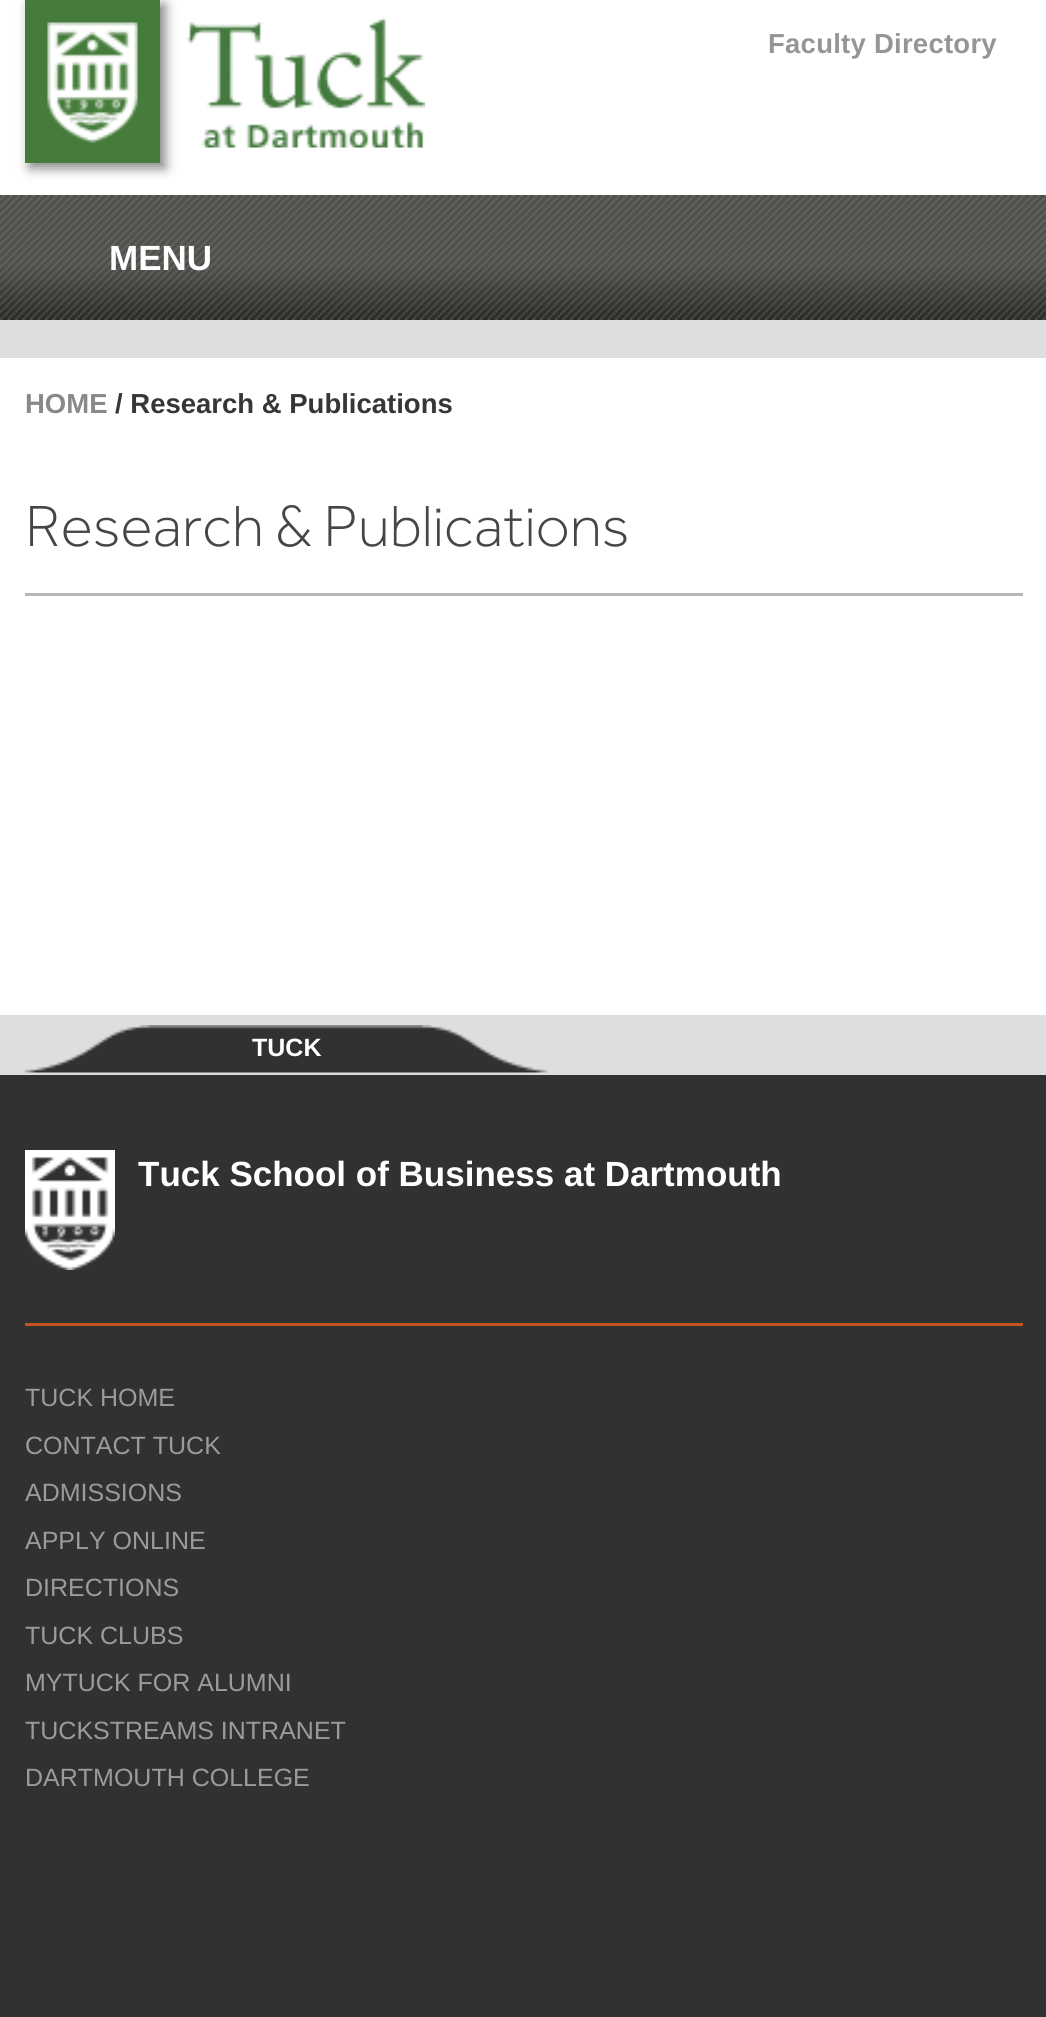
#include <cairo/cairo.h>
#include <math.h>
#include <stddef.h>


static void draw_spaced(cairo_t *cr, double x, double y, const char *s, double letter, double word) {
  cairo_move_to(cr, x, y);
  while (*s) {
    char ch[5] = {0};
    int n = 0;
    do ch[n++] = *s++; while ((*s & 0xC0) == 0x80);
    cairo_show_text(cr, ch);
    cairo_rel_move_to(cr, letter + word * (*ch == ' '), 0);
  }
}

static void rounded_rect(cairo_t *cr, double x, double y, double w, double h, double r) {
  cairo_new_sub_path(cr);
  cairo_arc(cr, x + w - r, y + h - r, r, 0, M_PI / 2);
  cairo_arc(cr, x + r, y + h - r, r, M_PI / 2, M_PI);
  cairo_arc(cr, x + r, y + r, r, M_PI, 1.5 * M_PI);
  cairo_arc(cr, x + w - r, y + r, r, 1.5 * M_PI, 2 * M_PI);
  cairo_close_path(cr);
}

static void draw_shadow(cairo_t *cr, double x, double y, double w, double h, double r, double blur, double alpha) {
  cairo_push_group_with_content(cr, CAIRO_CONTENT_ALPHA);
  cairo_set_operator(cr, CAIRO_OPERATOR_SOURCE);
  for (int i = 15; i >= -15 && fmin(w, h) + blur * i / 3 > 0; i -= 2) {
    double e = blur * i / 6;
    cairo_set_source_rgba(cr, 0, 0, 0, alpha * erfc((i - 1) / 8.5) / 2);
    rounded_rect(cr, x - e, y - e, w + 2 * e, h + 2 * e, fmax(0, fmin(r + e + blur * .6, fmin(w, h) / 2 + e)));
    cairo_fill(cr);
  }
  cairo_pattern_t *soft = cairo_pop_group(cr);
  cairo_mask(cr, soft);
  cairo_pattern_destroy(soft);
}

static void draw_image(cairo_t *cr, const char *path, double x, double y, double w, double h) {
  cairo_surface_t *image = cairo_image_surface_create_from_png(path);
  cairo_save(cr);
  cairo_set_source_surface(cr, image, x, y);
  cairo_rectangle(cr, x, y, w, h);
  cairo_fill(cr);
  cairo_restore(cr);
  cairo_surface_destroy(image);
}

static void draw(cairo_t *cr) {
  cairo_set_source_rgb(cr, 49 / 255.0, 49 / 255.0, 49 / 255.0);
  cairo_paint(cr);
  cairo_set_source_rgb(cr, 1, 1, 1);
  cairo_rectangle(cr, 0, 0, 1046, 195);
  cairo_fill(cr);
  cairo_set_source_rgb(cr, 0, 0, 0);
  draw_shadow(cr, 30, 5, 135, 163, 0, 6, 0.5);
  cairo_set_source_rgb(cr, 70 / 255.0, 124 / 255.0, 59 / 255.0);
  cairo_rectangle(cr, 25, 0, 135, 163);
  cairo_fill(cr);
  draw_image(cr, "images/1.png", 47, 22, 91, 121);
  draw_image(cr, "images/2.png", 187, 17, 238, 131);
  draw_image(cr, "images/3.png", 0, 195, 1046, 125);
  cairo_set_source_rgb(cr, 222 / 255.0, 222 / 255.0, 222 / 255.0);
  cairo_rectangle(cr, 0, 320, 1046, 755);
  cairo_fill(cr);
  cairo_set_source_rgb(cr, 1, 1, 1);
  cairo_rectangle(cr, 0, 358, 1046, 657);
  cairo_fill(cr);
  cairo_set_source_rgb(cr, 183 / 255.0, 183 / 255.0, 183 / 255.0);
  cairo_rectangle(cr, 25, 593, 998, 3);
  cairo_fill(cr);
  draw_image(cr, "images/4.png", 25, 1025, 523, 48);
  draw_image(cr, "images/5.png", 25, 1150, 90, 120);
  cairo_set_source_rgb(cr, 192 / 255.0, 85 / 255.0, 33 / 255.0);
  cairo_rectangle(cr, 25, 1323, 998, 3);
  cairo_fill(cr);
  cairo_select_font_face(cr, "Liberation Sans", CAIRO_FONT_SLANT_NORMAL, CAIRO_FONT_WEIGHT_BOLD);
  cairo_set_font_size(cr, 27.5);
  cairo_set_source_rgb(cr, 149 / 255.0, 149 / 255.0, 149 / 255.0);
  draw_spaced(cr, 768, 53, "Faculty Directory", 0.25, 0);
  cairo_set_font_size(cr, 35);
  cairo_set_source_rgb(cr, 1, 1, 1);
  cairo_move_to(cr, 109, 270);
  cairo_show_text(cr, "MENU");
  cairo_set_font_size(cr, 27.5);
  cairo_set_source_rgb(cr, 137 / 255.0, 137 / 255.0, 137 / 255.0);
  cairo_move_to(cr, 25, 413);
  cairo_show_text(cr, "HOME");
  cairo_set_source_rgb(cr, 54 / 255.0, 54 / 255.0, 54 / 255.0);
  cairo_move_to(cr, 115, 413);
  cairo_show_text(cr, "/ Research & Publications");
  cairo_select_font_face(cr, "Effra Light", CAIRO_FONT_SLANT_NORMAL, CAIRO_FONT_WEIGHT_NORMAL);
  cairo_set_font_size(cr, 60);
  cairo_set_source_rgb(cr, 70 / 255.0, 70 / 255.0, 70 / 255.0);
  cairo_move_to(cr, 25, 546);
  cairo_show_text(cr, "Research & Publications");
  cairo_select_font_face(cr, "Liberation Sans", CAIRO_FONT_SLANT_NORMAL, CAIRO_FONT_WEIGHT_BOLD);
  cairo_set_font_size(cr, 25);
  cairo_set_source_rgb(cr, 1, 1, 1);
  cairo_move_to(cr, 252, 1056);
  cairo_show_text(cr, "TUCK");
  cairo_set_font_size(cr, 35);
  cairo_move_to(cr, 138, 1186);
  cairo_show_text(cr, "Tuck School of Business at Dartmouth");
  cairo_select_font_face(cr, "Liberation Sans", CAIRO_FONT_SLANT_NORMAL, CAIRO_FONT_WEIGHT_NORMAL);
  cairo_set_font_size(cr, 25);
  cairo_set_source_rgb(cr, 154 / 255.0, 155 / 255.0, 154 / 255.0);
  cairo_move_to(cr, 25, 1406);
  cairo_show_text(cr, "TUCK HOME");
  cairo_move_to(cr, 25, 1454);
  cairo_show_text(cr, "CONTACT TUCK");
  cairo_move_to(cr, 25, 1501);
  cairo_show_text(cr, "ADMISSIONS");
  cairo_move_to(cr, 25, 1549);
  cairo_show_text(cr, "APPLY ONLINE");
  cairo_move_to(cr, 25, 1596);
  cairo_show_text(cr, "DIRECTIONS");
  cairo_move_to(cr, 25, 1644);
  cairo_show_text(cr, "TUCK CLUBS");
  cairo_move_to(cr, 25, 1691);
  cairo_show_text(cr, "MYTUCK FOR ALUMNI");
  cairo_move_to(cr, 25, 1739);
  cairo_show_text(cr, "TUCKSTREAMS INTRANET");
  cairo_move_to(cr, 25, 1786);
  cairo_show_text(cr, "DARTMOUTH COLLEGE");
}

int main(void) {
  cairo_surface_t *surface = cairo_image_surface_create(CAIRO_FORMAT_RGB24, 1046, 2017);
  cairo_t *cr = cairo_create(surface);
  cairo_font_options_t *options = cairo_font_options_create();
  cairo_font_options_set_hint_metrics(options, CAIRO_HINT_METRICS_OFF);
  cairo_font_options_set_hint_style(options, CAIRO_HINT_STYLE_NONE);
  cairo_set_font_options(cr, options);
  cairo_set_miter_limit(cr, 4);
  draw(cr);
  cairo_surface_write_to_png(surface, "out.png");
  cairo_font_options_destroy(options);
  cairo_destroy(cr);
  cairo_surface_destroy(surface);
  return 0;
}
